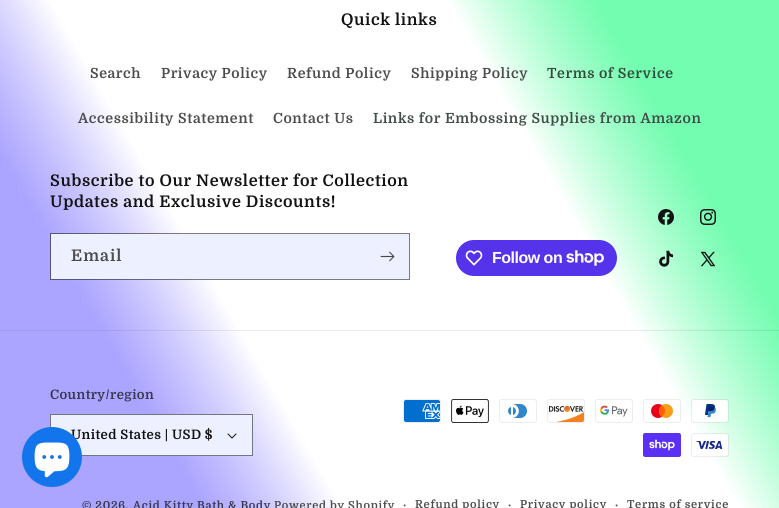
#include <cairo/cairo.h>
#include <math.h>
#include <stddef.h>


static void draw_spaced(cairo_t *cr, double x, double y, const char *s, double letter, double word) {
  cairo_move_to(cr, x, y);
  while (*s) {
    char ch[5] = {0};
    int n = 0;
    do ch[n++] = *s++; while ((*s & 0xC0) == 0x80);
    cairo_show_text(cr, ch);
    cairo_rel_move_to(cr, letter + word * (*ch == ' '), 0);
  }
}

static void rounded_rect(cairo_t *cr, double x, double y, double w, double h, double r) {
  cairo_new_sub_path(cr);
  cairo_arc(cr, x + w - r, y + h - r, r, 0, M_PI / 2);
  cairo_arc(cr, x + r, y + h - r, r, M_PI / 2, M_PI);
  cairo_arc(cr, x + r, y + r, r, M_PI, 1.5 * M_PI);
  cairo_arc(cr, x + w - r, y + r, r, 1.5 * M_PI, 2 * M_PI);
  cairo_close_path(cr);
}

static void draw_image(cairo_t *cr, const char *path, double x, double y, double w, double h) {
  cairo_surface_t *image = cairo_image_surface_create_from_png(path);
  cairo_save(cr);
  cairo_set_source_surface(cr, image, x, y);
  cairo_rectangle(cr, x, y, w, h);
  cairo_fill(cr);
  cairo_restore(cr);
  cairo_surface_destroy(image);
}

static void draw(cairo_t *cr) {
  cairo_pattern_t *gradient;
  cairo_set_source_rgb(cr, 1, 1, 1);
  cairo_paint(cr);
  gradient = cairo_pattern_create_linear(-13, 486, 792, 22);
  cairo_pattern_add_color_stop_rgba(gradient, 0.19, 203 / 255.0, 198 / 255.0, 1, 1);
  cairo_pattern_add_color_stop_rgba(gradient, 0.32, 1, 1, 1, 1);
  cairo_pattern_add_color_stop_rgba(gradient, 0.69, 1, 1, 1, 1);
  cairo_pattern_add_color_stop_rgba(gradient, 0.83, 166 / 255.0, 254 / 255.0, 205 / 255.0, 1);
  cairo_set_source(cr, gradient);
  cairo_pattern_destroy(gradient);
  cairo_rectangle(cr, 0, 0, 779, 508);
  cairo_fill(cr);
  gradient = cairo_pattern_create_linear(-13, 486, 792, 22);
  cairo_pattern_add_color_stop_rgba(gradient, 0.19, 129 / 255.0, 119 / 255.0, 1, 0.42);
  cairo_pattern_add_color_stop_rgba(gradient, 0.32, 129 / 255.0, 119 / 255.0, 1, 0);
  cairo_pattern_add_color_stop_rgba(gradient, 0.32, 74 / 255.0, 156 / 255.0, 1, 0);
  cairo_pattern_add_color_stop_rgba(gradient, 0.47, 54 / 255.0, 212 / 255.0, 1, 0);
  cairo_pattern_add_color_stop_rgba(gradient, 0.69, 43 / 255.0, 252 / 255.0, 135 / 255.0, 0);
  cairo_pattern_add_color_stop_rgba(gradient, 0.83, 43 / 255.0, 252 / 255.0, 135 / 255.0, 0.42);
  cairo_set_source(cr, gradient);
  cairo_pattern_destroy(gradient);
  cairo_rectangle(cr, 0, 0, 779, 508);
  cairo_fill(cr);
  cairo_set_source_rgb(cr, 236 / 255.0, 240 / 255.0, 1);
  cairo_rectangle(cr, 51, 234, 358, 45);
  cairo_fill(cr);
  cairo_rectangle(cr, 50.5, 233.5, 359, 46);
  cairo_set_source_rgba(cr, 18 / 255.0, 18 / 255.0, 18 / 255.0, 0.55);
  cairo_set_line_width(cr, 1);
  cairo_stroke(cr);
  draw_image(cr, "images/1.png", 380, 251, 15, 11);
  cairo_set_source_rgb(cr, 84 / 255.0, 51 / 255.0, 235 / 255.0);
  rounded_rect(cr, 456, 240, 161, 36, 18);
  cairo_fill(cr);
  draw_image(cr, "images/2.png", 465, 250, 18, 16);
  draw_image(cr, "images/3.png", 566, 250, 38, 16);
  draw_image(cr, "images/4.png", 658, 209, 16, 16);
  draw_image(cr, "images/5.png", 700, 209, 16, 16);
  draw_image(cr, "images/6.png", 659, 250, 15, 17);
  draw_image(cr, "images/7.png", 700, 251, 16, 16);
  cairo_set_source_rgba(cr, 18 / 255.0, 18 / 255.0, 18 / 255.0, 0.08);
  cairo_rectangle(cr, 0, 330, 779, 1);
  cairo_fill(cr);
  cairo_set_source_rgb(cr, 236 / 255.0, 240 / 255.0, 1);
  cairo_rectangle(cr, 51, 415, 201, 40);
  cairo_fill(cr);
  draw_image(cr, "images/8.png", 227, 433, 10, 6);
  cairo_rectangle(cr, 50.5, 414.5, 202, 41);
  cairo_set_source_rgb(cr, 116 / 255.0, 118 / 255.0, 125 / 255.0);
  cairo_stroke(cr);
  draw_image(cr, "images/9.png", 403, 399, 38, 24);
  draw_image(cr, "images/10.png", 451, 399, 38, 24);
  draw_image(cr, "images/11.png", 499, 399, 38, 24);
  draw_image(cr, "images/12.png", 547, 399, 38, 24);
  draw_image(cr, "images/13.png", 595, 399, 38, 24);
  draw_image(cr, "images/14.png", 643, 399, 38, 24);
  draw_image(cr, "images/15.png", 691, 399, 38, 24);
  draw_image(cr, "images/16.png", 643, 433, 38, 24);
  draw_image(cr, "images/17.png", 691, 433, 38, 24);
  cairo_select_font_face(cr, "Domine", CAIRO_FONT_SLANT_NORMAL, CAIRO_FONT_WEIGHT_BOLD);
  cairo_set_font_size(cr, 16);
  cairo_set_source_rgb(cr, 18 / 255.0, 18 / 255.0, 18 / 255.0);
  draw_spaced(cr, 341, 25, "Quick links", 0.6, 0);
  cairo_set_font_size(cr, 14);
  cairo_set_source_rgb(cr, 77 / 255.0, 77 / 255.0, 77 / 255.0);
  draw_spaced(cr, 90, 78, "Search", 0.6, 0);
  draw_spaced(cr, 161, 78, "Privacy Policy", 0.6, 0);
  draw_spaced(cr, 287, 78, "Refund Policy", 0.6, 0);
  draw_spaced(cr, 411, 78, "Shipping Policy", 0.6, 0);
  cairo_set_source_rgb(cr, 49 / 255.0, 77 / 255.0, 61 / 255.0);
  draw_spaced(cr, 547, 78, "Terms of Service", 0.6, 0);
  cairo_set_source_rgb(cr, 77 / 255.0, 77 / 255.0, 77 / 255.0);
  draw_spaced(cr, 78, 123, "Accessibility Statement", 0.6, 0);
  draw_spaced(cr, 273, 123, "Contact Us", 0.6, 0);
  cairo_set_source_rgb(cr, 65 / 255.0, 77 / 255.0, 70 / 255.0);
  draw_spaced(cr, 373, 123, "Links for Embossing Supplies from Amazon", 0.6, 0);
  cairo_set_font_size(cr, 16);
  cairo_set_source_rgb(cr, 18 / 255.0, 18 / 255.0, 18 / 255.0);
  draw_spaced(cr, 50, 186, "Subscribe to Our Newsletter for Collection", 0.6, 0);
  draw_spaced(cr, 50, 207, "Updates and Exclusive Discounts!", 0.6, 0);
  cairo_set_source_rgb(cr, 77 / 255.0, 77 / 255.0, 77 / 255.0);
  draw_spaced(cr, 71, 261, "Email", 1, 0);
  cairo_select_font_face(cr, "Liberation Sans", CAIRO_FONT_SLANT_NORMAL, CAIRO_FONT_WEIGHT_BOLD);
  cairo_set_source_rgb(cr, 1, 1, 1);
  draw_spaced(cr, 492, 263, "Follow on", -0.5, 0);
  cairo_select_font_face(cr, "Domine", CAIRO_FONT_SLANT_NORMAL, CAIRO_FONT_WEIGHT_BOLD);
  cairo_set_font_size(cr, 13);
  cairo_set_source_rgb(cr, 56 / 255.0, 55 / 255.0, 77 / 255.0);
  draw_spaced(cr, 50, 399, "Country/region", 0.4, 0);
  cairo_set_source_rgb(cr, 18 / 255.0, 18 / 255.0, 18 / 255.0);
  draw_spaced(cr, 71, 439, "United States | USD $", 0.4, 0);
  cairo_set_font_size(cr, 11);
  cairo_set_source_rgb(cr, 56 / 255.0, 55 / 255.0, 77 / 255.0);
  draw_spaced(cr, 82, 509, "© 2026,", 0.7, 0);
  draw_spaced(cr, 133, 509, "Acid Kitty Bath & Body", 0.7, 0);
  cairo_set_source_rgb(cr, 77 / 255.0, 77 / 255.0, 77 / 255.0);
  draw_spaced(cr, 274, 509, "Powered by Shopify", 0.7, 0);
  cairo_set_font_size(cr, 12);
  draw_spaced(cr, 403, 509, "·", 0.7, 0);
  cairo_set_font_size(cr, 11);
  draw_spaced(cr, 415, 508, "Refund policy", 0.7, 0);
  cairo_set_font_size(cr, 12);
  draw_spaced(cr, 508, 509, "·", 0.7, 0);
  cairo_set_font_size(cr, 11);
  draw_spaced(cr, 520, 508, "Privacy policy", 0.7, 0);
  cairo_set_font_size(cr, 12);
  draw_spaced(cr, 615, 509, "·", 0.7, 0);
  cairo_set_font_size(cr, 11);
  draw_spaced(cr, 627, 508, "Terms of service", 0.7, 0);
  cairo_set_source_rgb(cr, 18 / 255.0, 117 / 255.0, 236 / 255.0);
  cairo_new_path(cr);
  cairo_arc(cr, 52, 457, 30, 0, 2 * M_PI);
  cairo_fill(cr);
  draw_image(cr, "images/18.png", 34, 442, 36, 36);
}

int main(void) {
  cairo_surface_t *surface = cairo_image_surface_create(CAIRO_FORMAT_RGB24, 779, 508);
  cairo_t *cr = cairo_create(surface);
  cairo_font_options_t *options = cairo_font_options_create();
  cairo_font_options_set_hint_metrics(options, CAIRO_HINT_METRICS_OFF);
  cairo_font_options_set_hint_style(options, CAIRO_HINT_STYLE_NONE);
  cairo_set_font_options(cr, options);
  cairo_set_miter_limit(cr, 4);
  draw(cr);
  cairo_surface_write_to_png(surface, "out.png");
  cairo_font_options_destroy(options);
  cairo_destroy(cr);
  cairo_surface_destroy(surface);
  return 0;
}
